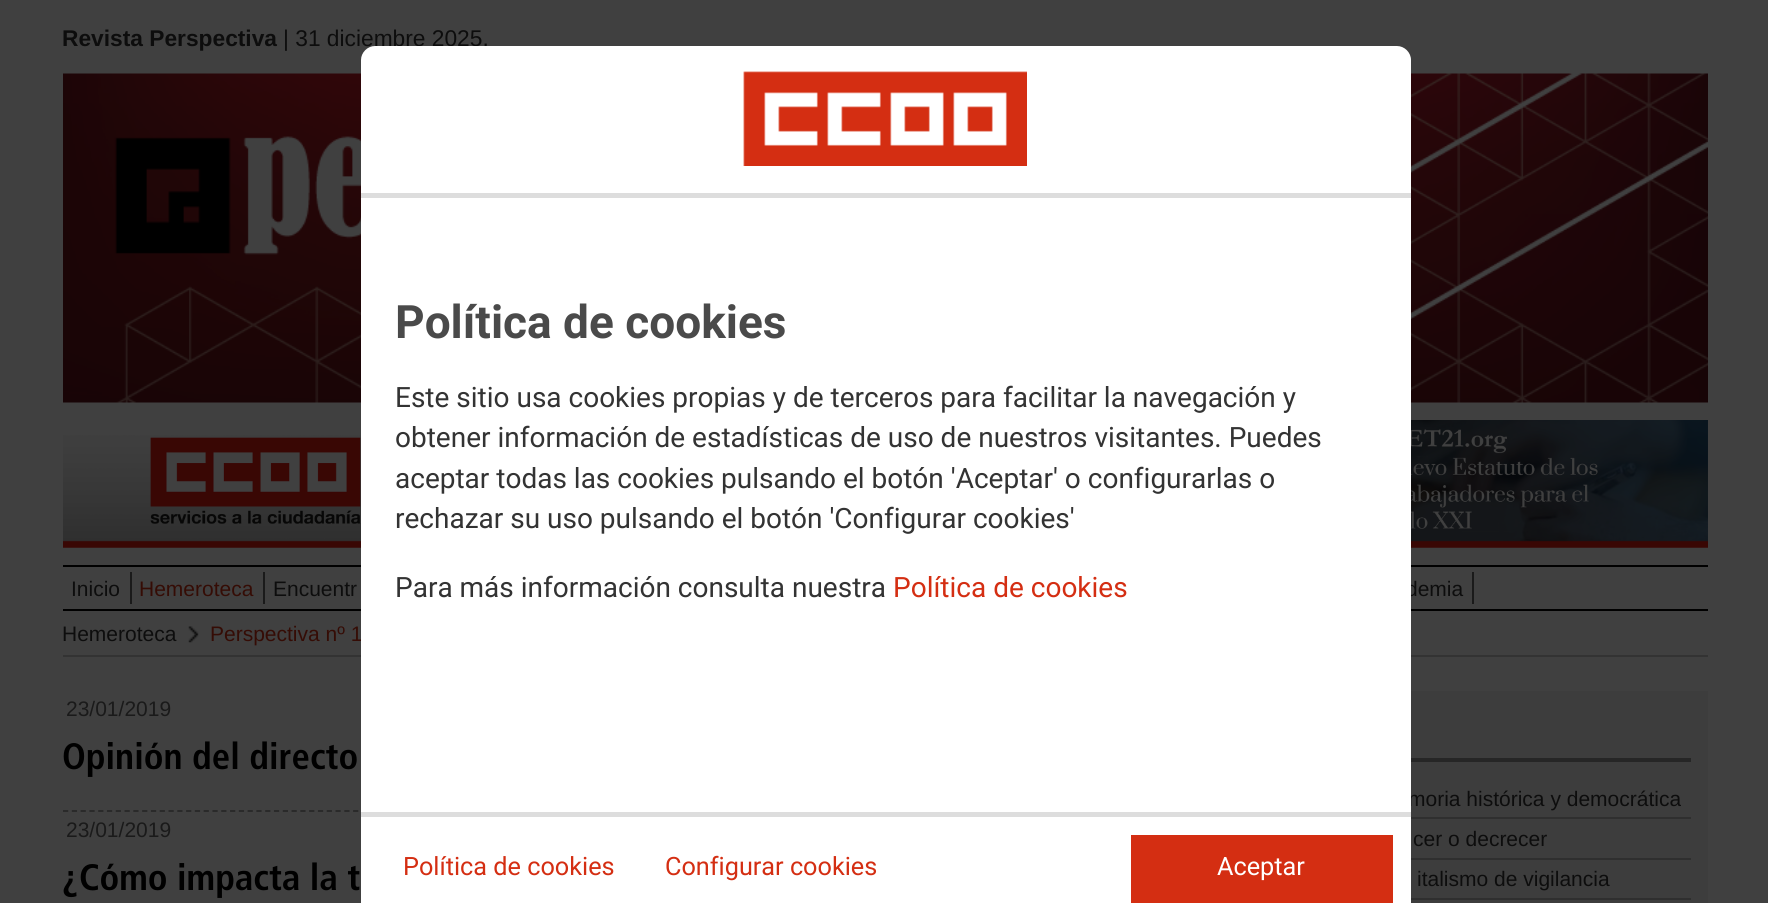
#include <cairo/cairo.h>
#include <math.h>
#include <stddef.h>


static void draw_image(cairo_t *cr, const char *path, double x, double y, double w, double h) {
  cairo_surface_t *image = cairo_image_surface_create_from_png(path);
  cairo_save(cr);
  cairo_set_source_surface(cr, image, x, y);
  cairo_rectangle(cr, x, y, w, h);
  cairo_fill(cr);
  cairo_restore(cr);
  cairo_surface_destroy(image);
}

static void draw(cairo_t *cr) {
  cairo_set_source_rgb(cr, 64 / 255.0, 64 / 255.0, 64 / 255.0);
  cairo_paint(cr);
  draw_image(cr, "images/1.png", 63, 73, 1645, 330);
  draw_image(cr, "images/2.png", 63, 435, 298, 113);
  draw_image(cr, "images/3.png", 1411, 420, 297, 128);
  cairo_set_source_rgb(cr, 0, 0, 0);
  cairo_rectangle(cr, 63, 565, 1645, 2);
  cairo_fill(cr);
  cairo_rectangle(cr, 63, 609, 1645, 2);
  cairo_fill(cr);
  cairo_set_source_rgb(cr, 26 / 255.0, 26 / 255.0, 26 / 255.0);
  cairo_rectangle(cr, 130, 572, 2, 32);
  cairo_fill(cr);
  cairo_rectangle(cr, 263, 572, 2, 32);
  cairo_fill(cr);
  cairo_rectangle(cr, 1472, 572, 2, 32);
  cairo_fill(cr);
  cairo_set_source_rgb(cr, 51 / 255.0, 51 / 255.0, 51 / 255.0);
  cairo_rectangle(cr, 63, 655, 1645, 2);
  cairo_fill(cr);
  draw_image(cr, "images/4.png", 188, 626, 11, 17);
  cairo_new_path(cr);
  cairo_move_to(cr, 63, 811);
  cairo_line_to(cr, 1148, 811);
  cairo_set_source_rgb(cr, 40 / 255.0, 40 / 255.0, 40 / 255.0);
  cairo_set_line_width(cr, 1.8);
  cairo_set_dash(cr, (double[]){5.25, 3.54}, 2, 0);
  cairo_stroke(cr);
  cairo_set_source_rgb(cr, 61 / 255.0, 61 / 255.0, 61 / 255.0);
  cairo_rectangle(cr, 1411, 691, 297, 212);
  cairo_fill(cr);
  cairo_set_source_rgb(cr, 38 / 255.0, 38 / 255.0, 38 / 255.0);
  cairo_rectangle(cr, 1411, 758, 280, 4);
  cairo_fill(cr);
  cairo_set_source_rgb(cr, 47 / 255.0, 47 / 255.0, 47 / 255.0);
  cairo_rectangle(cr, 1411, 817, 280, 2);
  cairo_fill(cr);
  cairo_rectangle(cr, 1411, 858, 280, 2);
  cairo_fill(cr);
  cairo_rectangle(cr, 1411, 898, 280, 2);
  cairo_fill(cr);
  cairo_set_source_rgb(cr, 1, 1, 1);
  cairo_rectangle(cr, 361, 817, 1050, 86);
  cairo_fill(cr);
  cairo_set_source_rgb(cr, 221 / 255.0, 221 / 255.0, 221 / 255.0);
  cairo_rectangle(cr, 361, 812, 1050, 5);
  cairo_fill(cr);
  cairo_set_source_rgb(cr, 212 / 255.0, 46 / 255.0, 18 / 255.0);
  cairo_rectangle(cr, 1131, 835, 262, 68);
  cairo_fill(cr);
  cairo_select_font_face(cr, "Liberation Sans", CAIRO_FONT_SLANT_NORMAL, CAIRO_FONT_WEIGHT_BOLD);
  cairo_set_font_size(cr, 22.75);
  cairo_set_source_rgb(cr, 13 / 255.0, 13 / 255.0, 13 / 255.0);
  cairo_move_to(cr, 62, 46);
  cairo_show_text(cr, "Revista Perspectiva");
  cairo_select_font_face(cr, "Liberation Sans", CAIRO_FONT_SLANT_NORMAL, CAIRO_FONT_WEIGHT_NORMAL);
  cairo_move_to(cr, 283, 46);
  cairo_show_text(cr, "| 31 diciembre 2025.");
  cairo_set_font_size(cr, 21);
  cairo_move_to(cr, 71, 596);
  cairo_show_text(cr, "Inicio");
  cairo_set_source_rgb(cr, 53 / 255.0, 12 / 255.0, 5 / 255.0);
  cairo_move_to(cr, 139, 596);
  cairo_show_text(cr, "Hemeroteca");
  cairo_set_source_rgb(cr, 13 / 255.0, 13 / 255.0, 13 / 255.0);
  cairo_move_to(cr, 273, 596);
  cairo_show_text(cr, "Encuentr");
  cairo_move_to(cr, 1406, 596);
  cairo_show_text(cr, "demia");
  cairo_move_to(cr, 62, 641);
  cairo_show_text(cr, "Hemeroteca");
  cairo_set_source_rgb(cr, 53 / 255.0, 12 / 255.0, 5 / 255.0);
  cairo_move_to(cr, 210, 641);
  cairo_show_text(cr, "Perspectiva nº 1");
  cairo_set_source_rgb(cr, 26 / 255.0, 26 / 255.0, 26 / 255.0);
  cairo_move_to(cr, 66, 716);
  cairo_show_text(cr, "23/01/2019");
  cairo_select_font_face(cr, "Frutiger", CAIRO_FONT_SLANT_NORMAL, CAIRO_FONT_WEIGHT_BOLD);
  cairo_set_font_size(cr, 36.75);
  cairo_set_source_rgb(cr, 0, 0, 0);
  cairo_move_to(cr, 62, 769);
  cairo_show_text(cr, "Opinión del directo");
  cairo_select_font_face(cr, "Liberation Sans", CAIRO_FONT_SLANT_NORMAL, CAIRO_FONT_WEIGHT_NORMAL);
  cairo_set_font_size(cr, 21);
  cairo_set_source_rgb(cr, 26 / 255.0, 26 / 255.0, 26 / 255.0);
  cairo_move_to(cr, 66, 837);
  cairo_show_text(cr, "23/01/2019");
  cairo_select_font_face(cr, "Frutiger", CAIRO_FONT_SLANT_NORMAL, CAIRO_FONT_WEIGHT_BOLD);
  cairo_set_font_size(cr, 36.75);
  cairo_set_source_rgb(cr, 0, 0, 0);
  cairo_move_to(cr, 62, 890);
  cairo_show_text(cr, "¿Cómo impacta la t");
  cairo_select_font_face(cr, "Liberation Sans", CAIRO_FONT_SLANT_NORMAL, CAIRO_FONT_WEIGHT_NORMAL);
  cairo_set_font_size(cr, 21);
  cairo_set_source_rgb(cr, 13 / 255.0, 13 / 255.0, 13 / 255.0);
  cairo_move_to(cr, 1408, 806);
  cairo_show_text(cr, "moria histórica y democrática");
  cairo_move_to(cr, 1413, 846);
  cairo_show_text(cr, "cer o decrecer");
  cairo_move_to(cr, 1417, 886);
  cairo_show_text(cr, "italismo de vigilancia");
  cairo_set_source_rgb(cr, 1, 1, 1);
  cairo_new_path(cr);
  cairo_move_to(cr, 375, 46);
  cairo_line_to(cr, 1397, 46);
  cairo_curve_to(cr, 1404.5, 46, 1411, 52.5, 1411, 60);
  cairo_line_to(cr, 1411, 198);
  cairo_line_to(cr, 361, 198);
  cairo_line_to(cr, 361, 60);
  cairo_curve_to(cr, 361, 52.5, 367.5, 46, 375, 46);
  cairo_close_path(cr);
  cairo_fill(cr);
  cairo_set_source_rgb(cr, 221 / 255.0, 221 / 255.0, 221 / 255.0);
  cairo_rectangle(cr, 361, 193, 1050, 5);
  cairo_fill(cr);
  draw_image(cr, "images/5.png", 743, 71, 284, 95);
  cairo_set_source_rgb(cr, 1, 1, 1);
  cairo_rectangle(cr, 361, 198, 1050, 614);
  cairo_fill(cr);
  cairo_select_font_face(cr, "Roboto", CAIRO_FONT_SLANT_NORMAL, CAIRO_FONT_WEIGHT_BOLD);
  cairo_set_font_size(cr, 46);
  cairo_set_source_rgb(cr, 74 / 255.0, 74 / 255.0, 74 / 255.0);
  cairo_move_to(cr, 395, 338);
  cairo_show_text(cr, "Política de cookies");
  cairo_select_font_face(cr, "Roboto", CAIRO_FONT_SLANT_NORMAL, CAIRO_FONT_WEIGHT_NORMAL);
  cairo_set_font_size(cr, 28);
  cairo_set_source_rgb(cr, 51 / 255.0, 51 / 255.0, 51 / 255.0);
  cairo_move_to(cr, 395, 407);
  cairo_show_text(cr, "Este sitio usa cookies propias y de terceros para facilitar la navegación y");
  cairo_move_to(cr, 395, 447);
  cairo_show_text(cr, "obtener información de estadísticas de uso de nuestros visitantes. Puedes");
  cairo_move_to(cr, 395, 488);
  cairo_show_text(cr, "aceptar todas las cookies pulsando el botón 'Aceptar' o configurarlas o");
  cairo_move_to(cr, 395, 528);
  cairo_show_text(cr, "rechazar su uso pulsando el botón 'Configurar cookies'");
  cairo_move_to(cr, 395, 597);
  cairo_show_text(cr, "Para más información consulta nuestra");
  cairo_set_source_rgb(cr, 212 / 255.0, 46 / 255.0, 18 / 255.0);
  cairo_move_to(cr, 893, 597);
  cairo_show_text(cr, "Política de cookies");
  cairo_set_font_size(cr, 25.25);
  cairo_move_to(cr, 403, 875);
  cairo_show_text(cr, "Política de cookies");
  cairo_move_to(cr, 665, 875);
  cairo_show_text(cr, "Configurar cookies");
  cairo_set_source_rgb(cr, 1, 1, 1);
  cairo_move_to(cr, 1217, 875);
  cairo_show_text(cr, "Aceptar");
}

int main(void) {
  cairo_surface_t *surface = cairo_image_surface_create(CAIRO_FORMAT_RGB24, 1768, 903);
  cairo_t *cr = cairo_create(surface);
  cairo_font_options_t *options = cairo_font_options_create();
  cairo_font_options_set_hint_metrics(options, CAIRO_HINT_METRICS_OFF);
  cairo_font_options_set_hint_style(options, CAIRO_HINT_STYLE_NONE);
  cairo_set_font_options(cr, options);
  cairo_set_miter_limit(cr, 4);
  draw(cr);
  cairo_surface_write_to_png(surface, "out.png");
  cairo_font_options_destroy(options);
  cairo_destroy(cr);
  cairo_surface_destroy(surface);
  return 0;
}
